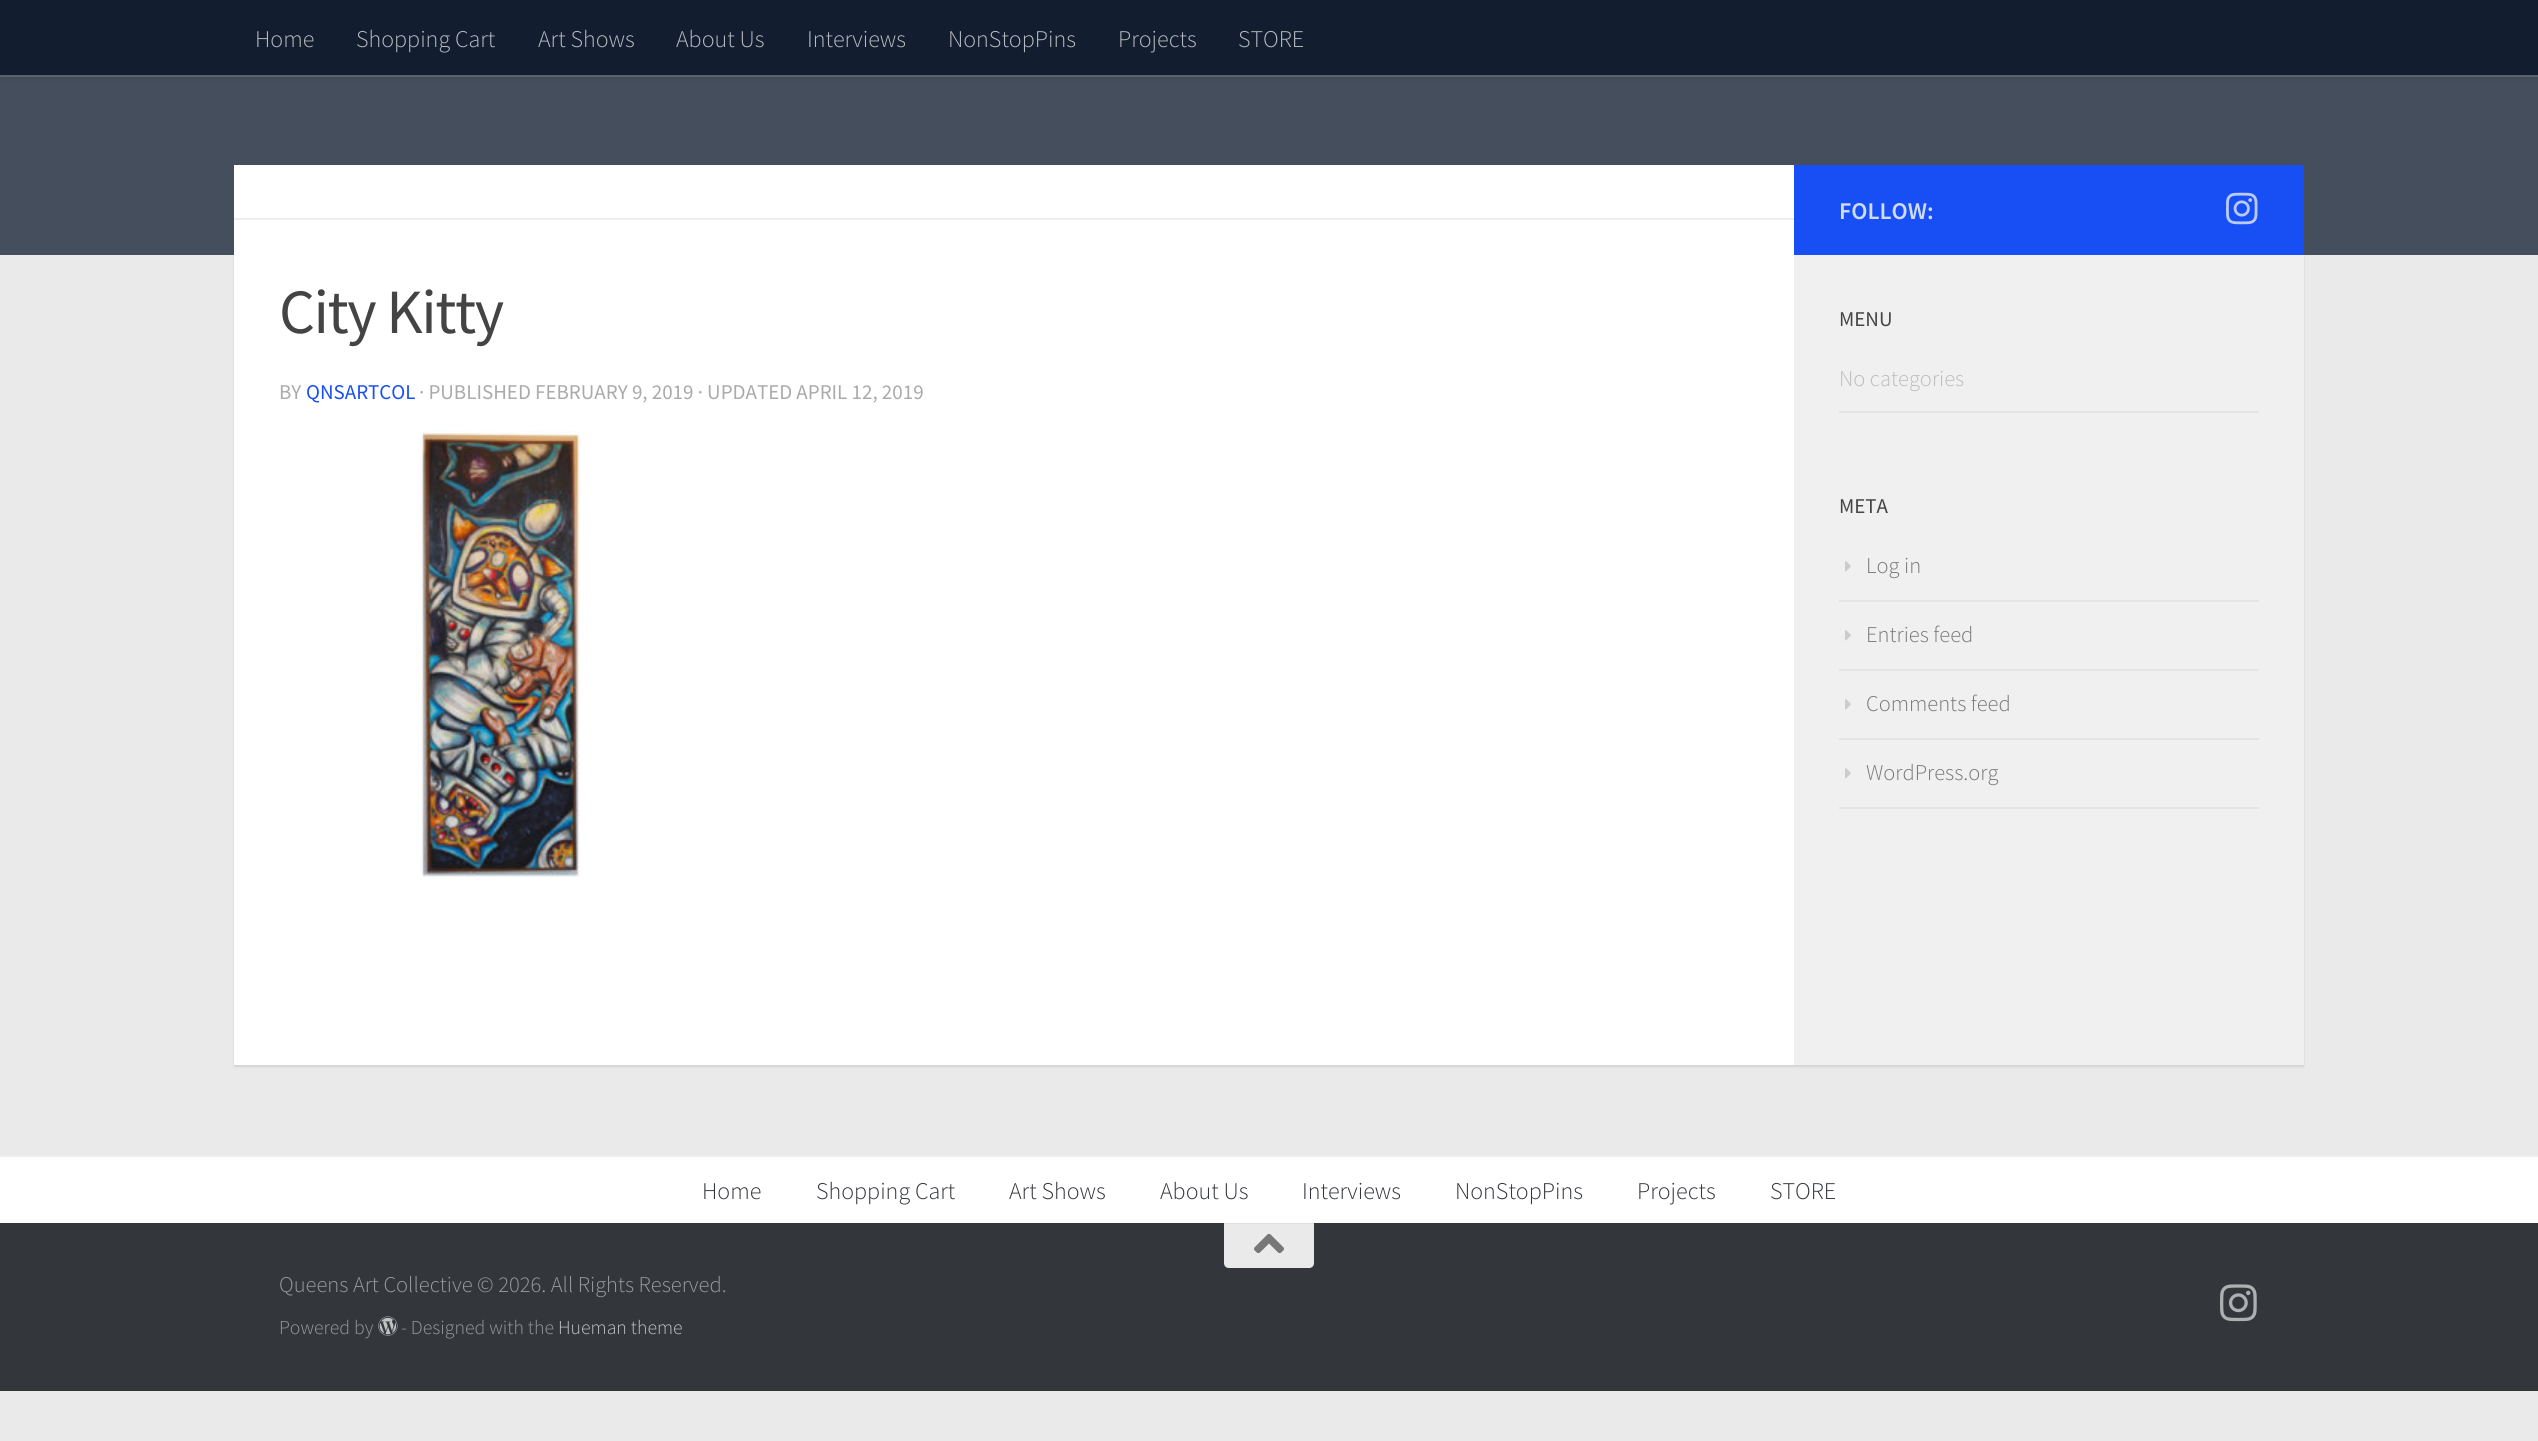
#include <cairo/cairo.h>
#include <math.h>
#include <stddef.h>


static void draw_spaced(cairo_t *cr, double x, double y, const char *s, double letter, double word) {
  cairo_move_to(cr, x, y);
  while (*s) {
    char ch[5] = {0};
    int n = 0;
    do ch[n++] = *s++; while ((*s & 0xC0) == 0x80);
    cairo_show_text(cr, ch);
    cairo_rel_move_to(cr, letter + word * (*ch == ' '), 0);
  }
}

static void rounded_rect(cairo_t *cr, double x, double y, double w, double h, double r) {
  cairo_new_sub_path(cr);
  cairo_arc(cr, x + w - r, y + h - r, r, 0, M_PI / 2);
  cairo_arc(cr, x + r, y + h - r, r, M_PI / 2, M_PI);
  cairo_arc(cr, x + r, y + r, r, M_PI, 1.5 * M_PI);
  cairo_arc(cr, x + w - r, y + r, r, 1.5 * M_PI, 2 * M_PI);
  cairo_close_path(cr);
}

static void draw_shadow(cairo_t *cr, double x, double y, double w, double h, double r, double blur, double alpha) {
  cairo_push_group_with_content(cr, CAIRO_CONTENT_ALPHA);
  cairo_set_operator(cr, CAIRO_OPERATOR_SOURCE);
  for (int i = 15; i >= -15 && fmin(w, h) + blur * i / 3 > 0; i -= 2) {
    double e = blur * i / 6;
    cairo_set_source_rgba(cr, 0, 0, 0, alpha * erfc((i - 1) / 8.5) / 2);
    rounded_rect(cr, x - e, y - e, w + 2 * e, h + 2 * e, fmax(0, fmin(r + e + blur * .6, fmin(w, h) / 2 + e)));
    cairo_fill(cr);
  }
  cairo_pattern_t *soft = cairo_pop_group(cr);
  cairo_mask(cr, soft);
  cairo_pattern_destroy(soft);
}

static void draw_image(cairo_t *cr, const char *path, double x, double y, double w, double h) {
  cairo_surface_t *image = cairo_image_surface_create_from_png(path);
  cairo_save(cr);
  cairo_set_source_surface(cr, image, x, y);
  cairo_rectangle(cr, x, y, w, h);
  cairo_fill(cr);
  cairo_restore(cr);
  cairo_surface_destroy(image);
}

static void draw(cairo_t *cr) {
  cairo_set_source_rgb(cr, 234 / 255.0, 234 / 255.0, 234 / 255.0);
  cairo_paint(cr);
  cairo_set_source_rgb(cr, 0, 0, 0);
  draw_shadow(cr, 234, 167, 2070, 900, 0, 1, 0.1);
  cairo_set_source_rgb(cr, 69 / 255.0, 78 / 255.0, 92 / 255.0);
  cairo_rectangle(cr, 0, 77, 2538, 178);
  cairo_fill(cr);
  cairo_set_source_rgb(cr, 97 / 255.0, 105 / 255.0, 116 / 255.0);
  cairo_rectangle(cr, 0, 75, 2538, 2);
  cairo_fill(cr);
  cairo_set_source_rgb(cr, 0, 0, 0);
  draw_shadow(cr, 0, 0, 2538, 75, 0, 4, 0.2);
  cairo_set_source_rgb(cr, 18 / 255.0, 29 / 255.0, 48 / 255.0);
  cairo_rectangle(cr, 0, 0, 2538, 75);
  cairo_fill(cr);
  cairo_set_source_rgb(cr, 1, 1, 1);
  cairo_rectangle(cr, 234, 165, 1560, 900);
  cairo_fill(cr);
  cairo_set_source_rgb(cr, 238 / 255.0, 238 / 255.0, 238 / 255.0);
  cairo_rectangle(cr, 234, 218, 1560, 2);
  cairo_fill(cr);
  draw_image(cr, "images/1.png", 420, 430, 160, 448);
  cairo_set_source_rgb(cr, 24 / 255.0, 79 / 255.0, 244 / 255.0);
  cairo_rectangle(cr, 1794, 165, 510, 90);
  cairo_fill(cr);
  draw_image(cr, "images/2.png", 2226, 192, 32, 33);
  cairo_set_source_rgb(cr, 240 / 255.0, 240 / 255.0, 240 / 255.0);
  cairo_rectangle(cr, 1794, 255, 510, 810);
  cairo_fill(cr);
  cairo_set_source_rgb(cr, 228 / 255.0, 228 / 255.0, 228 / 255.0);
  cairo_rectangle(cr, 1839, 411, 420, 2);
  cairo_fill(cr);
  cairo_rectangle(cr, 1839, 600, 420, 2);
  cairo_fill(cr);
  draw_image(cr, "images/3.png", 1845, 561, 6, 11);
  cairo_rectangle(cr, 1839, 669, 420, 2);
  cairo_fill(cr);
  draw_image(cr, "images/3.png", 1845, 630, 6, 11);
  cairo_rectangle(cr, 1839, 738, 420, 2);
  cairo_fill(cr);
  draw_image(cr, "images/3.png", 1845, 699, 6, 11);
  cairo_rectangle(cr, 1839, 807, 420, 2);
  cairo_fill(cr);
  draw_image(cr, "images/3.png", 1845, 768, 6, 11);
  cairo_set_source_rgb(cr, 1, 1, 1);
  cairo_rectangle(cr, 0, 1157, 2538, 66);
  cairo_fill(cr);
  cairo_set_source_rgb(cr, 238 / 255.0, 238 / 255.0, 238 / 255.0);
  cairo_rectangle(cr, 0, 1155, 2538, 2);
  cairo_fill(cr);
  cairo_set_source_rgb(cr, 51 / 255.0, 54 / 255.0, 59 / 255.0);
  cairo_rectangle(cr, 0, 1223, 2538, 168);
  cairo_fill(cr);
  cairo_set_source_rgb(cr, 234 / 255.0, 234 / 255.0, 234 / 255.0);
  cairo_new_path(cr);
  cairo_move_to(cr, 1224, 1223);
  cairo_line_to(cr, 1314, 1223);
  cairo_line_to(cr, 1314, 1263);
  cairo_curve_to(cr, 1314, 1266, 1312, 1268, 1309, 1268);
  cairo_line_to(cr, 1229, 1268);
  cairo_curve_to(cr, 1226, 1268, 1224, 1266, 1224, 1263);
  cairo_close_path(cr);
  cairo_fill(cr);
  cairo_set_source_rgb(cr, 222 / 255.0, 222 / 255.0, 222 / 255.0);
  cairo_rectangle(cr, 1224, 1223, 90, 1);
  cairo_fill(cr);
  draw_image(cr, "images/4.png", 1254, 1233, 30, 21);
  draw_image(cr, "images/5.png", 378, 1316, 20, 20);
  draw_image(cr, "images/6.png", 2220, 1284, 37, 38);
  cairo_select_font_face(cr, "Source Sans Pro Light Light", CAIRO_FONT_SLANT_NORMAL, CAIRO_FONT_WEIGHT_NORMAL);
  cairo_set_font_size(cr, 24);
  cairo_set_source_rgb(cr, 184 / 255.0, 187 / 255.0, 193 / 255.0);
  cairo_move_to(cr, 255, 47);
  cairo_show_text(cr, "Home");
  cairo_move_to(cr, 356, 47);
  cairo_show_text(cr, "Shopping Cart");
  cairo_move_to(cr, 538, 47);
  cairo_show_text(cr, "Art Shows");
  cairo_move_to(cr, 676, 47);
  cairo_show_text(cr, "About Us");
  cairo_move_to(cr, 807, 47);
  cairo_show_text(cr, "Interviews");
  cairo_move_to(cr, 948, 47);
  cairo_show_text(cr, "NonStopPins");
  cairo_move_to(cr, 1118, 47);
  cairo_show_text(cr, "Projects");
  cairo_move_to(cr, 1238, 47);
  cairo_show_text(cr, "STORE");
  cairo_select_font_face(cr, "Source Sans Pro", CAIRO_FONT_SLANT_NORMAL, CAIRO_FONT_WEIGHT_NORMAL);
  cairo_set_font_size(cr, 63);
  cairo_set_source_rgb(cr, 68 / 255.0, 68 / 255.0, 68 / 255.0);
  draw_spaced(cr, 279, 333, "City Kitty", -1.5, 0);
  cairo_set_font_size(cr, 21);
  cairo_set_source_rgb(cr, 170 / 255.0, 170 / 255.0, 170 / 255.0);
  cairo_move_to(cr, 279, 399);
  cairo_show_text(cr, "BY");
  cairo_set_source_rgb(cr, 24 / 255.0, 79 / 255.0, 244 / 255.0);
  cairo_move_to(cr, 306, 399);
  cairo_show_text(cr, "QNSARTCOL");
  cairo_set_source_rgb(cr, 170 / 255.0, 170 / 255.0, 170 / 255.0);
  cairo_move_to(cr, 419, 399);
  cairo_show_text(cr, "· PUBLISHED FEBRUARY 9, 2019 · UPDATED APRIL 12, 2019");
  cairo_select_font_face(cr, "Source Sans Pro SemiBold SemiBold", CAIRO_FONT_SLANT_NORMAL, CAIRO_FONT_WEIGHT_NORMAL);
  cairo_set_font_size(cr, 24);
  cairo_set_source_rgb(cr, 209 / 255.0, 220 / 255.0, 253 / 255.0);
  cairo_move_to(cr, 1839, 219);
  cairo_show_text(cr, "FOLLOW:");
  cairo_select_font_face(cr, "Source Sans Pro", CAIRO_FONT_SLANT_NORMAL, CAIRO_FONT_WEIGHT_NORMAL);
  cairo_set_font_size(cr, 21);
  cairo_set_source_rgb(cr, 68 / 255.0, 68 / 255.0, 68 / 255.0);
  cairo_move_to(cr, 1839, 326);
  cairo_show_text(cr, "MENU");
  cairo_select_font_face(cr, "Source Sans Pro Light Light", CAIRO_FONT_SLANT_NORMAL, CAIRO_FONT_WEIGHT_NORMAL);
  cairo_set_font_size(cr, 22.5);
  cairo_set_source_rgb(cr, 187 / 255.0, 187 / 255.0, 187 / 255.0);
  cairo_move_to(cr, 1839, 386);
  cairo_show_text(cr, "No categories");
  cairo_select_font_face(cr, "Source Sans Pro", CAIRO_FONT_SLANT_NORMAL, CAIRO_FONT_WEIGHT_NORMAL);
  cairo_set_font_size(cr, 21);
  cairo_set_source_rgb(cr, 68 / 255.0, 68 / 255.0, 68 / 255.0);
  cairo_move_to(cr, 1839, 513);
  cairo_show_text(cr, "META");
  cairo_select_font_face(cr, "Source Sans Pro Light Light", CAIRO_FONT_SLANT_NORMAL, CAIRO_FONT_WEIGHT_NORMAL);
  cairo_set_font_size(cr, 22.5);
  cairo_set_source_rgb(cr, 119 / 255.0, 119 / 255.0, 119 / 255.0);
  cairo_move_to(cr, 1866, 573);
  cairo_show_text(cr, "Log in");
  cairo_move_to(cr, 1866, 642);
  cairo_show_text(cr, "Entries feed");
  cairo_move_to(cr, 1866, 711);
  cairo_show_text(cr, "Comments feed");
  cairo_move_to(cr, 1866, 780);
  cairo_show_text(cr, "WordPress.org");
  cairo_set_font_size(cr, 24);
  cairo_set_source_rgb(cr, 51 / 255.0, 54 / 255.0, 59 / 255.0);
  cairo_move_to(cr, 702, 1199);
  cairo_show_text(cr, "Home");
  cairo_move_to(cr, 816, 1199);
  cairo_show_text(cr, "Shopping Cart");
  cairo_move_to(cr, 1009, 1199);
  cairo_show_text(cr, "Art Shows");
  cairo_move_to(cr, 1160, 1199);
  cairo_show_text(cr, "About Us");
  cairo_move_to(cr, 1302, 1199);
  cairo_show_text(cr, "Interviews");
  cairo_move_to(cr, 1455, 1199);
  cairo_show_text(cr, "NonStopPins");
  cairo_move_to(cr, 1637, 1199);
  cairo_show_text(cr, "Projects");
  cairo_move_to(cr, 1770, 1199);
  cairo_show_text(cr, "STORE");
  cairo_set_font_size(cr, 22.5);
  cairo_set_source_rgb(cr, 153 / 255.0, 155 / 255.0, 157 / 255.0);
  cairo_move_to(cr, 279, 1292);
  cairo_show_text(cr, "Queens Art Collective © 2026. All Rights Reserved.");
  cairo_set_font_size(cr, 19.75);
  cairo_move_to(cr, 279, 1334);
  cairo_show_text(cr, "Powered by");
  cairo_move_to(cr, 401, 1334);
  cairo_show_text(cr, "- Designed with the");
  cairo_set_source_rgb(cr, 194 / 255.0, 195 / 255.0, 196 / 255.0);
  cairo_move_to(cr, 558, 1334);
  cairo_show_text(cr, "Hueman theme");
}

int main(void) {
  cairo_surface_t *surface = cairo_image_surface_create(CAIRO_FORMAT_RGB24, 2538, 1441);
  cairo_t *cr = cairo_create(surface);
  cairo_font_options_t *options = cairo_font_options_create();
  cairo_font_options_set_hint_metrics(options, CAIRO_HINT_METRICS_OFF);
  cairo_font_options_set_hint_style(options, CAIRO_HINT_STYLE_NONE);
  cairo_set_font_options(cr, options);
  cairo_set_miter_limit(cr, 4);
  draw(cr);
  cairo_surface_write_to_png(surface, "out.png");
  cairo_font_options_destroy(options);
  cairo_destroy(cr);
  cairo_surface_destroy(surface);
  return 0;
}
